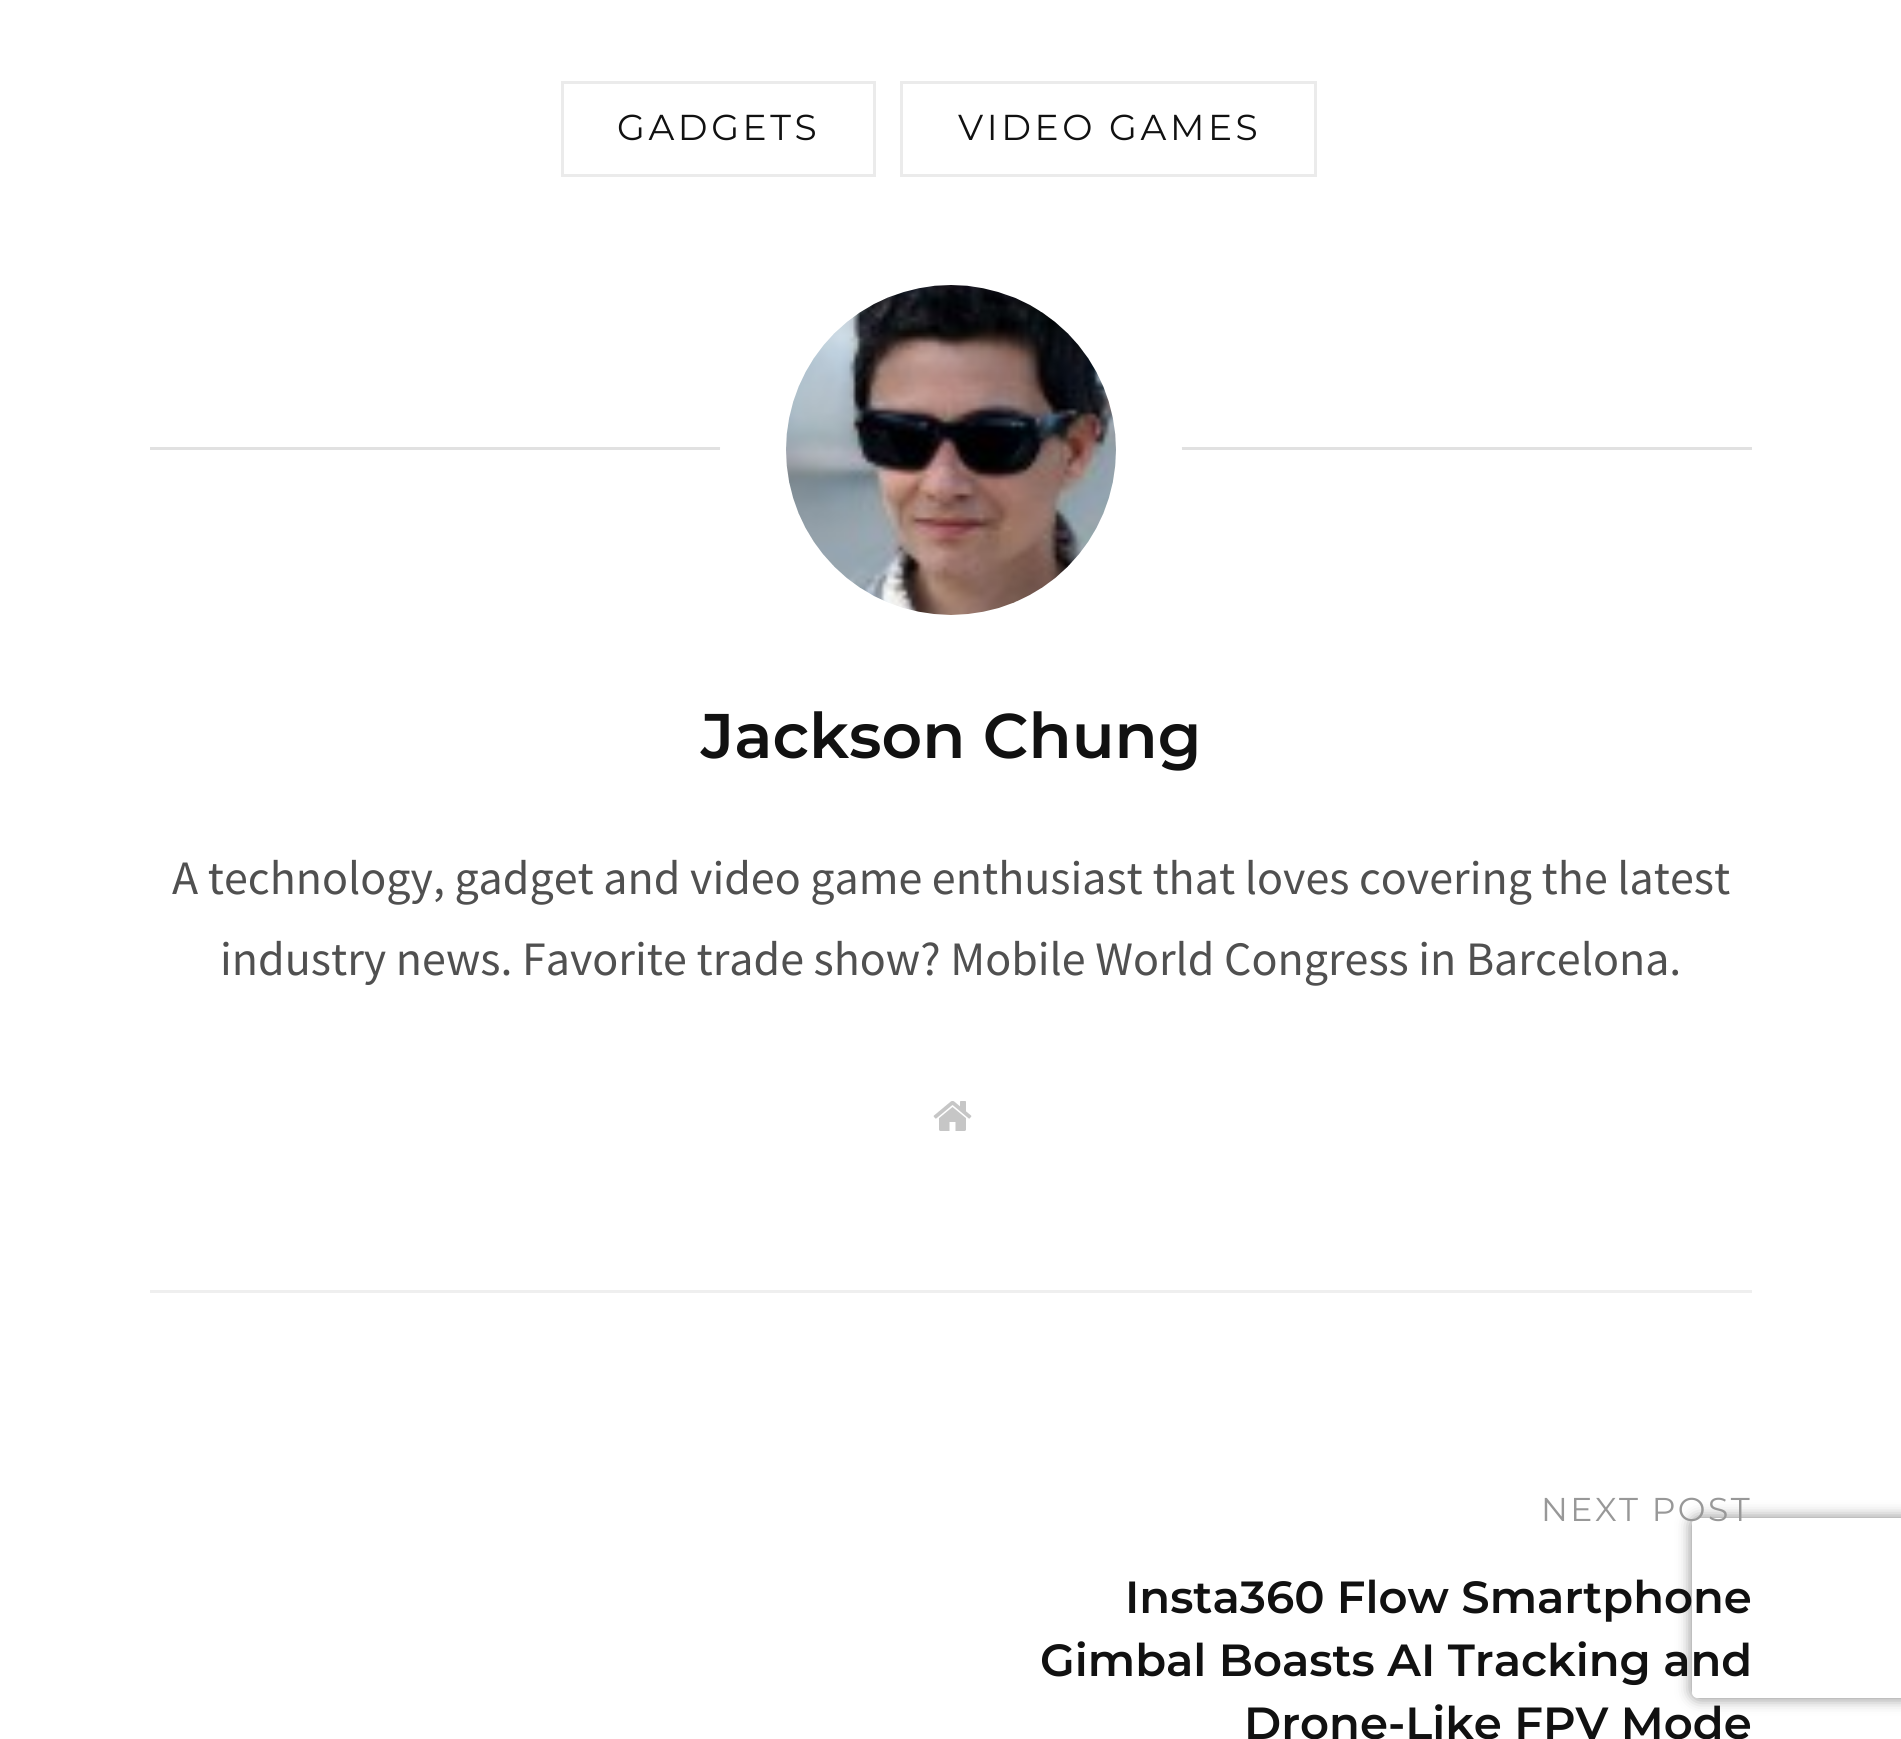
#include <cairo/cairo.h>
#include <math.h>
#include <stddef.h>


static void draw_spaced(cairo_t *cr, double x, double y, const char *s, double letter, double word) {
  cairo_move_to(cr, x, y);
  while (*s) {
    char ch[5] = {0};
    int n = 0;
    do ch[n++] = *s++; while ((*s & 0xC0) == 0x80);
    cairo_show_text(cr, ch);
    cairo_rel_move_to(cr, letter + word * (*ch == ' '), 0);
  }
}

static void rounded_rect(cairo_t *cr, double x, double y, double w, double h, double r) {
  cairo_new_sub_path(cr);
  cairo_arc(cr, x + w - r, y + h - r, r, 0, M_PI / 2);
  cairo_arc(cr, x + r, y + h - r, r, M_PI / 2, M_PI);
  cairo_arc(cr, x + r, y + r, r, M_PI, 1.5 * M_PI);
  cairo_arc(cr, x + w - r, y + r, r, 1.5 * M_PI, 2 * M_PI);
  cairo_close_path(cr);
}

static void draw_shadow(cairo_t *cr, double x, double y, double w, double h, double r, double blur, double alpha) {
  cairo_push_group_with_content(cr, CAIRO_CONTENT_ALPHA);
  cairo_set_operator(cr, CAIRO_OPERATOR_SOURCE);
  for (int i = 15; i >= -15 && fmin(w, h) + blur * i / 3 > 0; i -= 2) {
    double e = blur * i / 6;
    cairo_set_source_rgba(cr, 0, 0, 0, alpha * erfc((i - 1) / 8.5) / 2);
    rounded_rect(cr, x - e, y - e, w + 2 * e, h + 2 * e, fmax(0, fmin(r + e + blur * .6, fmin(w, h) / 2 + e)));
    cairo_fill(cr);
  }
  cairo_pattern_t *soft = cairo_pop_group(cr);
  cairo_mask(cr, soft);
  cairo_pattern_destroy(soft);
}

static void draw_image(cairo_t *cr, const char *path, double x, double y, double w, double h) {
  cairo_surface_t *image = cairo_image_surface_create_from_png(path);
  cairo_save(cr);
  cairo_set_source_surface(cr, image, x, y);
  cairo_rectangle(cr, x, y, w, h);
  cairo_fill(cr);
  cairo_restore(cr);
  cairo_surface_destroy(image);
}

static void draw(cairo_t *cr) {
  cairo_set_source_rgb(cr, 1, 1, 1);
  cairo_paint(cr);
  cairo_rectangle(cr, 562.5, 82.5, 312, 93);
  cairo_set_source_rgb(cr, 235 / 255.0, 235 / 255.0, 235 / 255.0);
  cairo_set_line_width(cr, 3);
  cairo_stroke(cr);
  cairo_rectangle(cr, 901.5, 82.5, 414, 93);
  cairo_stroke(cr);
  cairo_set_source_rgb(cr, 225 / 255.0, 225 / 255.0, 225 / 255.0);
  cairo_rectangle(cr, 150, 447, 1602, 3);
  cairo_fill(cr);
  cairo_arc(cr, 951, 450, 198, 0, 2 * M_PI);
  cairo_set_source_rgb(cr, 1, 1, 1);
  cairo_set_line_width(cr, 66);
  cairo_stroke(cr);
  draw_image(cr, "images/1.png", 786, 285, 330, 330);
  draw_image(cr, "images/2.png", 933, 1101, 39, 30);
  cairo_set_source_rgb(cr, 239 / 255.0, 239 / 255.0, 239 / 255.0);
  cairo_rectangle(cr, 150, 1290, 1602, 3);
  cairo_fill(cr);
  cairo_save(cr);
  cairo_set_fill_rule(cr, CAIRO_FILL_RULE_EVEN_ODD);
  cairo_new_path(cr);
  cairo_move_to(cr, 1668, 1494);
  cairo_line_to(cr, 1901, 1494);
  cairo_line_to(cr, 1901, 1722);
  cairo_line_to(cr, 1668, 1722);
  cairo_close_path(cr);
  cairo_move_to(cr, 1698, 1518);
  cairo_line_to(cr, 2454, 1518);
  cairo_curve_to(cr, 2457.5, 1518, 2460, 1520.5, 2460, 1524);
  cairo_line_to(cr, 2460, 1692);
  cairo_curve_to(cr, 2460, 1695.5, 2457.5, 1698, 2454, 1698);
  cairo_line_to(cr, 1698, 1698);
  cairo_curve_to(cr, 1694.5, 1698, 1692, 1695.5, 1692, 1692);
  cairo_line_to(cr, 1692, 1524);
  cairo_curve_to(cr, 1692, 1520.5, 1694.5, 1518, 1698, 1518);
  cairo_close_path(cr);
  cairo_clip(cr);
  cairo_set_source_rgb(cr, 128 / 255.0, 128 / 255.0, 128 / 255.0);
  draw_shadow(cr, 1692, 1518, 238, 180, 6, 7.5, 1);
  cairo_restore(cr);
  cairo_select_font_face(cr, "Montserrat", CAIRO_FONT_SLANT_NORMAL, CAIRO_FONT_WEIGHT_NORMAL);
  cairo_set_font_size(cr, 36);
  cairo_set_source_rgb(cr, 17 / 255.0, 17 / 255.0, 17 / 255.0);
  draw_spaced(cr, 617, 140, "GADGETS", 3.6, 0);
  draw_spaced(cr, 958, 140, "VIDEO GAMES", 3.6, 0);
  cairo_select_font_face(cr, "Montserrat SemiBold", CAIRO_FONT_SLANT_NORMAL, CAIRO_FONT_WEIGHT_NORMAL);
  cairo_set_font_size(cr, 63);
  cairo_move_to(cr, 701, 758);
  cairo_show_text(cr, "Jackson Chung");
  cairo_select_font_face(cr, "Source Sans Pro", CAIRO_FONT_SLANT_NORMAL, CAIRO_FONT_WEIGHT_NORMAL);
  cairo_set_font_size(cr, 48);
  cairo_set_source_rgb(cr, 80 / 255.0, 80 / 255.0, 80 / 255.0);
  cairo_move_to(cr, 172, 894);
  cairo_show_text(cr, "A technology, gadget and video game enthusiast that loves covering the latest");
  cairo_move_to(cr, 220, 975);
  cairo_show_text(cr, "industry news. Favorite trade show? Mobile World Congress in Barcelona.");
  cairo_select_font_face(cr, "Montserrat", CAIRO_FONT_SLANT_NORMAL, CAIRO_FONT_WEIGHT_NORMAL);
  cairo_set_font_size(cr, 33);
  cairo_set_source_rgb(cr, 152 / 255.0, 152 / 255.0, 152 / 255.0);
  draw_spaced(cr, 1541, 1521, "NEXT POST", 2.5, 0);
  cairo_select_font_face(cr, "Montserrat SemiBold", CAIRO_FONT_SLANT_NORMAL, CAIRO_FONT_WEIGHT_NORMAL);
  cairo_set_font_size(cr, 45);
  cairo_set_source_rgb(cr, 17 / 255.0, 17 / 255.0, 17 / 255.0);
  cairo_move_to(cr, 1125, 1613);
  cairo_show_text(cr, "Insta360 Flow Smartphone");
  cairo_move_to(cr, 1040, 1676);
  cairo_show_text(cr, "Gimbal Boasts AI Tracking and");
  cairo_move_to(cr, 1244, 1739);
  cairo_show_text(cr, "Drone-Like FPV Mode");
}

int main(void) {
  cairo_surface_t *surface = cairo_image_surface_create(CAIRO_FORMAT_RGB24, 1901, 1739);
  cairo_t *cr = cairo_create(surface);
  cairo_font_options_t *options = cairo_font_options_create();
  cairo_font_options_set_hint_metrics(options, CAIRO_HINT_METRICS_OFF);
  cairo_font_options_set_hint_style(options, CAIRO_HINT_STYLE_NONE);
  cairo_set_font_options(cr, options);
  cairo_set_miter_limit(cr, 4);
  draw(cr);
  cairo_surface_write_to_png(surface, "out.png");
  cairo_font_options_destroy(options);
  cairo_destroy(cr);
  cairo_surface_destroy(surface);
  return 0;
}
